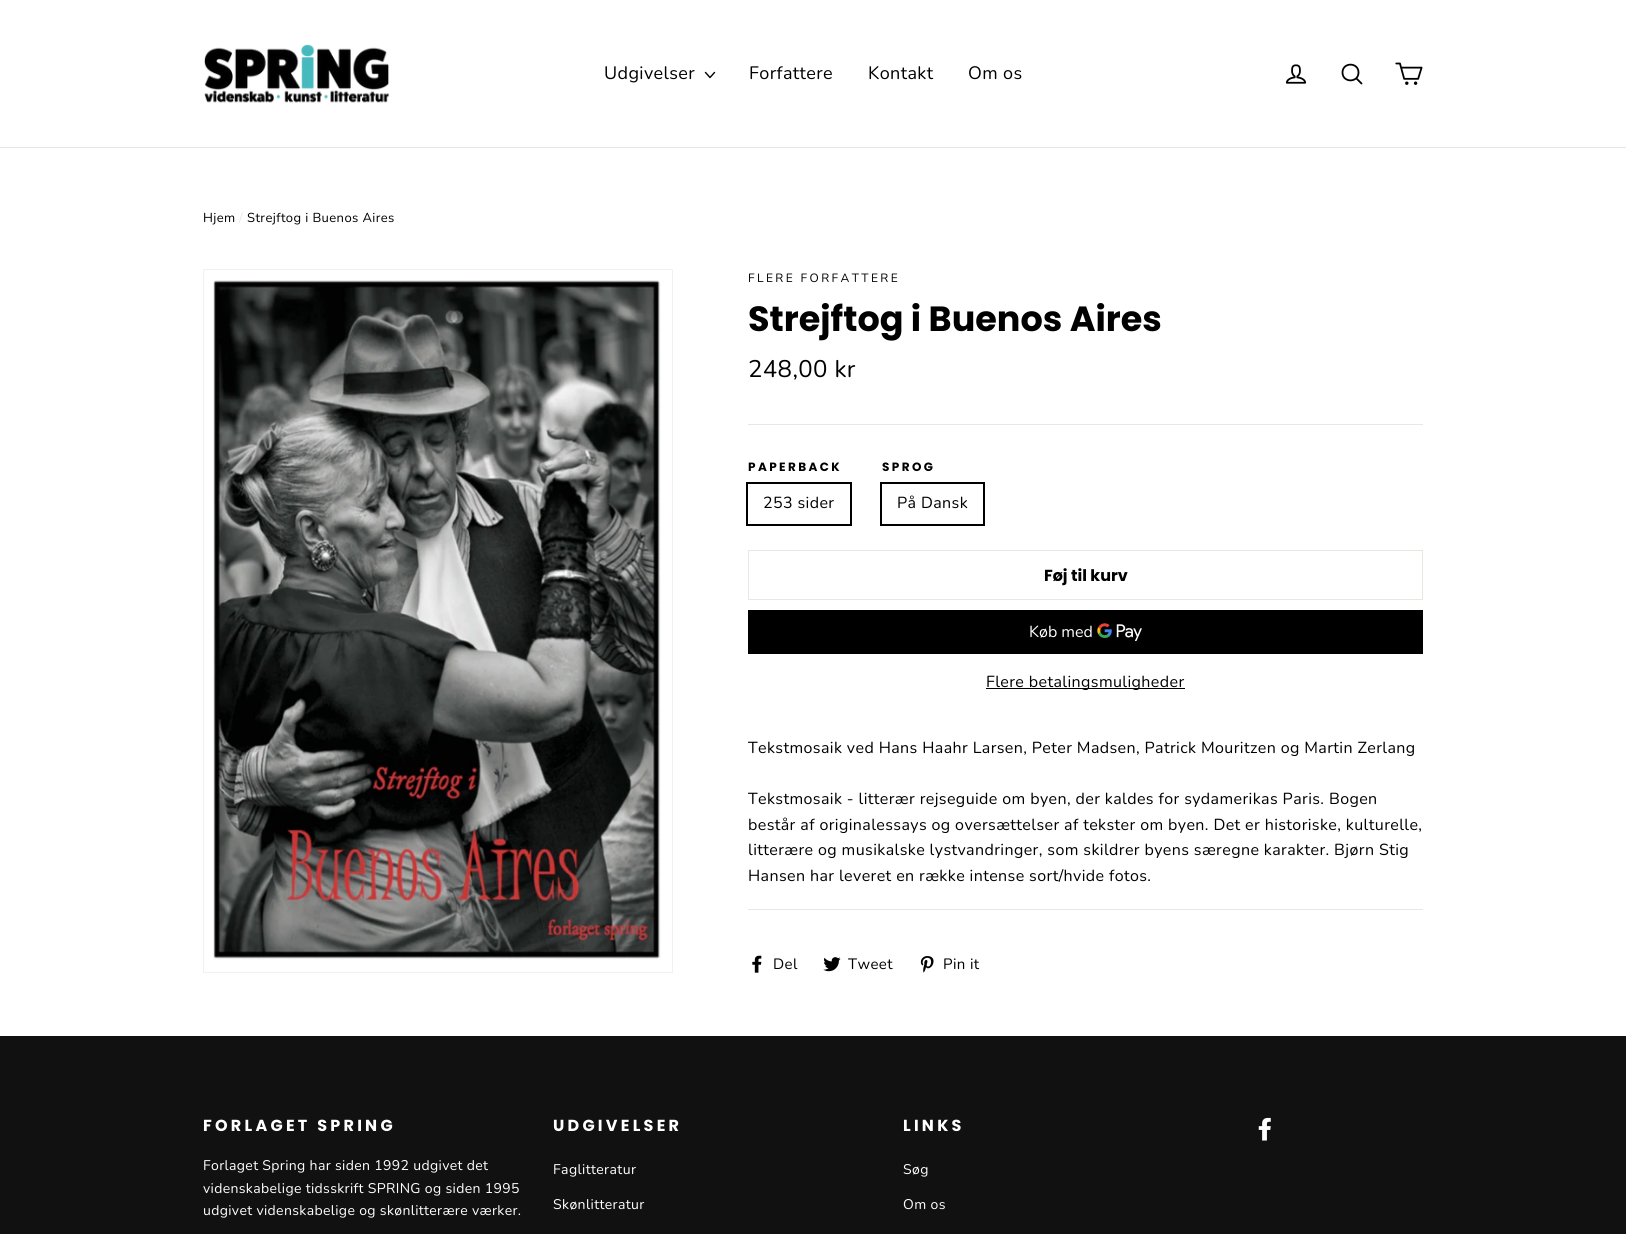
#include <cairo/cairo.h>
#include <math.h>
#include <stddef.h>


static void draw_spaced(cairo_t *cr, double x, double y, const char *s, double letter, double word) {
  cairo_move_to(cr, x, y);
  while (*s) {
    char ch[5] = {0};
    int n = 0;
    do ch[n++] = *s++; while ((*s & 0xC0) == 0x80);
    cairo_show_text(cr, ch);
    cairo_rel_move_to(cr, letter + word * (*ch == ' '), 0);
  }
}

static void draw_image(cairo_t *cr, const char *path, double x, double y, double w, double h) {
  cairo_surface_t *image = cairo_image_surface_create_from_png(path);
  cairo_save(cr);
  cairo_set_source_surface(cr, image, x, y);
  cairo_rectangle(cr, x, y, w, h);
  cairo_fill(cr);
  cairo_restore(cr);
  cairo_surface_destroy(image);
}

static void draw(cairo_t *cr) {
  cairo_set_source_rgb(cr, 1, 1, 1);
  cairo_paint(cr);
  cairo_set_source_rgb(cr, 232 / 255.0, 232 / 255.0, 225 / 255.0);
  cairo_rectangle(cr, 0, 147, 1626, 1);
  cairo_fill(cr);
  draw_image(cr, "images/1.png", 204, 44, 186, 59);
  cairo_new_path(cr);
  cairo_move_to(cr, 705.5, 72.5);
  cairo_line_to(cr, 710, 77.5);
  cairo_line_to(cr, 714.5, 72.5);
  cairo_set_source_rgb(cr, 0, 0, 0);
  cairo_set_line_width(cr, 1.4);
  cairo_set_line_cap(cr, CAIRO_LINE_CAP_ROUND);
  cairo_set_line_join(cr, CAIRO_LINE_JOIN_ROUND);
  cairo_stroke(cr);
  draw_image(cr, "images/2.png", 1285, 64, 22, 20);
  cairo_new_path(cr);
  cairo_move_to(cr, 1358.5, 72.5);
  cairo_curve_to(cr, 1358.5, 83, 1342.5, 83, 1342.5, 72.5);
  cairo_curve_to(cr, 1342.5, 62, 1358.5, 62, 1358.5, 72.5);
  cairo_close_path(cr);
  cairo_move_to(cr, 1361.5, 83.5);
  cairo_line_to(cr, 1356.5, 78.5);
  cairo_set_line_width(cr, 1.8);
  cairo_stroke(cr);
  draw_image(cr, "images/3.png", 1395, 62, 28, 23);
  cairo_rectangle(cr, 203.5, 269.5, 469, 703);
  cairo_set_source_rgb(cr, 241 / 255.0, 241 / 255.0, 241 / 255.0);
  cairo_set_line_width(cr, 1);
  cairo_set_line_cap(cr, CAIRO_LINE_CAP_BUTT);
  cairo_set_line_join(cr, CAIRO_LINE_JOIN_MITER);
  cairo_stroke(cr);
  draw_image(cr, "images/4.png", 213, 280, 448, 680);
  cairo_set_source_rgb(cr, 232 / 255.0, 232 / 255.0, 225 / 255.0);
  cairo_rectangle(cr, 748, 424, 675, 1);
  cairo_fill(cr);
  cairo_rectangle(cr, 747, 483, 104, 42);
  cairo_set_source_rgb(cr, 0, 0, 0);
  cairo_set_line_width(cr, 2);
  cairo_stroke(cr);
  cairo_rectangle(cr, 881, 483, 103, 42);
  cairo_stroke(cr);
  cairo_rectangle(cr, 748.5, 550.5, 674, 49);
  cairo_set_source_rgb(cr, 232 / 255.0, 232 / 255.0, 225 / 255.0);
  cairo_set_line_width(cr, 1);
  cairo_stroke(cr);
  cairo_set_source_rgb(cr, 0, 0, 0);
  cairo_rectangle(cr, 748, 610, 675, 44);
  cairo_fill(cr);
  draw_image(cr, "images/5.png", 1097, 623, 45, 18);
  cairo_rectangle(cr, 986, 688, 199, 1);
  cairo_fill(cr);
  cairo_set_source_rgb(cr, 232 / 255.0, 232 / 255.0, 225 / 255.0);
  cairo_rectangle(cr, 748, 909, 675, 1);
  cairo_fill(cr);
  draw_image(cr, "images/6.png", 752, 955, 10, 18);
  draw_image(cr, "images/7.png", 823, 957, 18, 15);
  draw_image(cr, "images/8.png", 920, 956, 14, 17);
  cairo_set_source_rgb(cr, 17 / 255.0, 17 / 255.0, 17 / 255.0);
  cairo_rectangle(cr, 0, 1036, 1626, 198);
  cairo_fill(cr);
  draw_image(cr, "images/9.png", 1258, 1117, 13, 24);
  cairo_select_font_face(cr, "Nunito", CAIRO_FONT_SLANT_NORMAL, CAIRO_FONT_WEIGHT_NORMAL);
  cairo_set_font_size(cr, 18);
  cairo_set_source_rgb(cr, 0, 0, 0);
  draw_spaced(cr, 604, 79, "Udgivelser", 0.4, 0);
  draw_spaced(cr, 749, 79, "Forfattere", 0.4, 0);
  draw_spaced(cr, 868, 79, "Kontakt", 0.4, 0);
  draw_spaced(cr, 968, 79, "Om os", 0.4, 0);
  cairo_set_font_size(cr, 13);
  draw_spaced(cr, 203, 222, "Hjem", 0.4, 0);
  cairo_set_source_rgb(cr, 232 / 255.0, 232 / 255.0, 225 / 255.0);
  draw_spaced(cr, 239, 222, "/", 0.4, 0);
  cairo_set_source_rgb(cr, 0, 0, 0);
  draw_spaced(cr, 247, 222, "Strejftog i Buenos Aires", 0.4, 0);
  cairo_set_font_size(cr, 12);
  draw_spaced(cr, 748, 282, "FLERE FORFATTERE", 2.4, 0);
  cairo_select_font_face(cr, "Poppins", CAIRO_FONT_SLANT_NORMAL, CAIRO_FONT_WEIGHT_BOLD);
  cairo_set_font_size(cr, 35);
  cairo_move_to(cr, 748, 331);
  cairo_show_text(cr, "Strejftog i Buenos Aires");
  cairo_select_font_face(cr, "Nunito", CAIRO_FONT_SLANT_NORMAL, CAIRO_FONT_WEIGHT_NORMAL);
  cairo_set_font_size(cr, 24);
  draw_spaced(cr, 748, 377, "248,00 kr", 0.4, 0);
  cairo_select_font_face(cr, "Poppins", CAIRO_FONT_SLANT_NORMAL, CAIRO_FONT_WEIGHT_BOLD);
  cairo_set_font_size(cr, 12);
  draw_spaced(cr, 748, 471, "PAPERBACK", 2.4, 0);
  cairo_select_font_face(cr, "Nunito", CAIRO_FONT_SLANT_NORMAL, CAIRO_FONT_WEIGHT_NORMAL);
  cairo_set_font_size(cr, 16);
  draw_spaced(cr, 763, 508, "253 sider", 0.4, 0);
  cairo_select_font_face(cr, "Poppins", CAIRO_FONT_SLANT_NORMAL, CAIRO_FONT_WEIGHT_BOLD);
  cairo_set_font_size(cr, 12);
  draw_spaced(cr, 882, 471, "SPROG", 2.4, 0);
  cairo_select_font_face(cr, "Nunito", CAIRO_FONT_SLANT_NORMAL, CAIRO_FONT_WEIGHT_NORMAL);
  cairo_set_font_size(cr, 16);
  draw_spaced(cr, 897, 508, "På Dansk", 0.4, 0);
  cairo_select_font_face(cr, "Poppins", CAIRO_FONT_SLANT_NORMAL, CAIRO_FONT_WEIGHT_BOLD);
  cairo_move_to(cr, 1044, 581);
  cairo_show_text(cr, "Føj til kurv");
  cairo_select_font_face(cr, "Nunito", CAIRO_FONT_SLANT_NORMAL, CAIRO_FONT_WEIGHT_NORMAL);
  cairo_set_source_rgb(cr, 1, 1, 1);
  cairo_move_to(cr, 1029, 637);
  cairo_show_text(cr, "Køb med");
  cairo_set_source_rgb(cr, 0, 0, 0);
  draw_spaced(cr, 986, 687, "Flere betalingsmuligheder", 0.4, 0);
  draw_spaced(cr, 748, 753, "Tekstmosaik ved Hans Haahr Larsen, Peter Madsen, Patrick Mouritzen og Martin Zerlang", 0.4, 0);
  draw_spaced(cr, 748, 804, "Tekstmosaik - litterær rejseguide om byen, der kaldes for sydamerikas Paris. Bogen", 0.4, 0);
  draw_spaced(cr, 748, 830, "består af originalessays og oversættelser af tekster om byen. Det er historiske, kulturelle,", 0.4, 0);
  draw_spaced(cr, 748, 855, "litterære og musikalske lystvandringer, som skildrer byens særegne karakter. Bjørn Stig", 0.4, 0);
  draw_spaced(cr, 748, 881, "Hansen har leveret en række intense sort/hvide fotos.", 0.4, 0);
  cairo_set_font_size(cr, 15);
  draw_spaced(cr, 773, 969, "Del", 0.4, 0);
  draw_spaced(cr, 848, 969, "Tweet", 0.4, 0);
  draw_spaced(cr, 943, 969, "Pin it", 0.4, 0);
  cairo_select_font_face(cr, "Poppins", CAIRO_FONT_SLANT_NORMAL, CAIRO_FONT_WEIGHT_BOLD);
  cairo_set_font_size(cr, 16);
  cairo_set_source_rgb(cr, 1, 1, 1);
  draw_spaced(cr, 203, 1131, "FORLAGET SPRING", 3.25, 0);
  cairo_select_font_face(cr, "Nunito", CAIRO_FONT_SLANT_NORMAL, CAIRO_FONT_WEIGHT_NORMAL);
  cairo_set_font_size(cr, 14);
  draw_spaced(cr, 203, 1170, "Forlaget Spring har siden 1992 udgivet det", 0.35, 0);
  draw_spaced(cr, 203, 1193, "videnskabelige tidsskrift SPRING og siden 1995", 0.35, 0);
  draw_spaced(cr, 203, 1215, "udgivet videnskabelige og skønlitterære værker.", 0.35, 0);
  cairo_select_font_face(cr, "Poppins", CAIRO_FONT_SLANT_NORMAL, CAIRO_FONT_WEIGHT_BOLD);
  cairo_set_font_size(cr, 16);
  draw_spaced(cr, 553, 1131, "UDGIVELSER", 3.25, 0);
  cairo_select_font_face(cr, "Nunito", CAIRO_FONT_SLANT_NORMAL, CAIRO_FONT_WEIGHT_NORMAL);
  cairo_set_font_size(cr, 14);
  draw_spaced(cr, 553, 1174, "Faglitteratur", 0.4, 0);
  draw_spaced(cr, 553, 1209, "Skønlitteratur", 0.4, 0);
  cairo_select_font_face(cr, "Poppins", CAIRO_FONT_SLANT_NORMAL, CAIRO_FONT_WEIGHT_BOLD);
  cairo_set_font_size(cr, 16);
  draw_spaced(cr, 903, 1131, "LINKS", 3.25, 0);
  cairo_select_font_face(cr, "Nunito", CAIRO_FONT_SLANT_NORMAL, CAIRO_FONT_WEIGHT_NORMAL);
  cairo_set_font_size(cr, 14);
  draw_spaced(cr, 903, 1174, "Søg", 0.4, 0);
  draw_spaced(cr, 903, 1209, "Om os", 0.4, 0);
}

int main(void) {
  cairo_surface_t *surface = cairo_image_surface_create(CAIRO_FORMAT_RGB24, 1626, 1234);
  cairo_t *cr = cairo_create(surface);
  cairo_font_options_t *options = cairo_font_options_create();
  cairo_font_options_set_hint_metrics(options, CAIRO_HINT_METRICS_OFF);
  cairo_font_options_set_hint_style(options, CAIRO_HINT_STYLE_NONE);
  cairo_set_font_options(cr, options);
  cairo_set_miter_limit(cr, 4);
  draw(cr);
  cairo_surface_write_to_png(surface, "out.png");
  cairo_font_options_destroy(options);
  cairo_destroy(cr);
  cairo_surface_destroy(surface);
  return 0;
}
